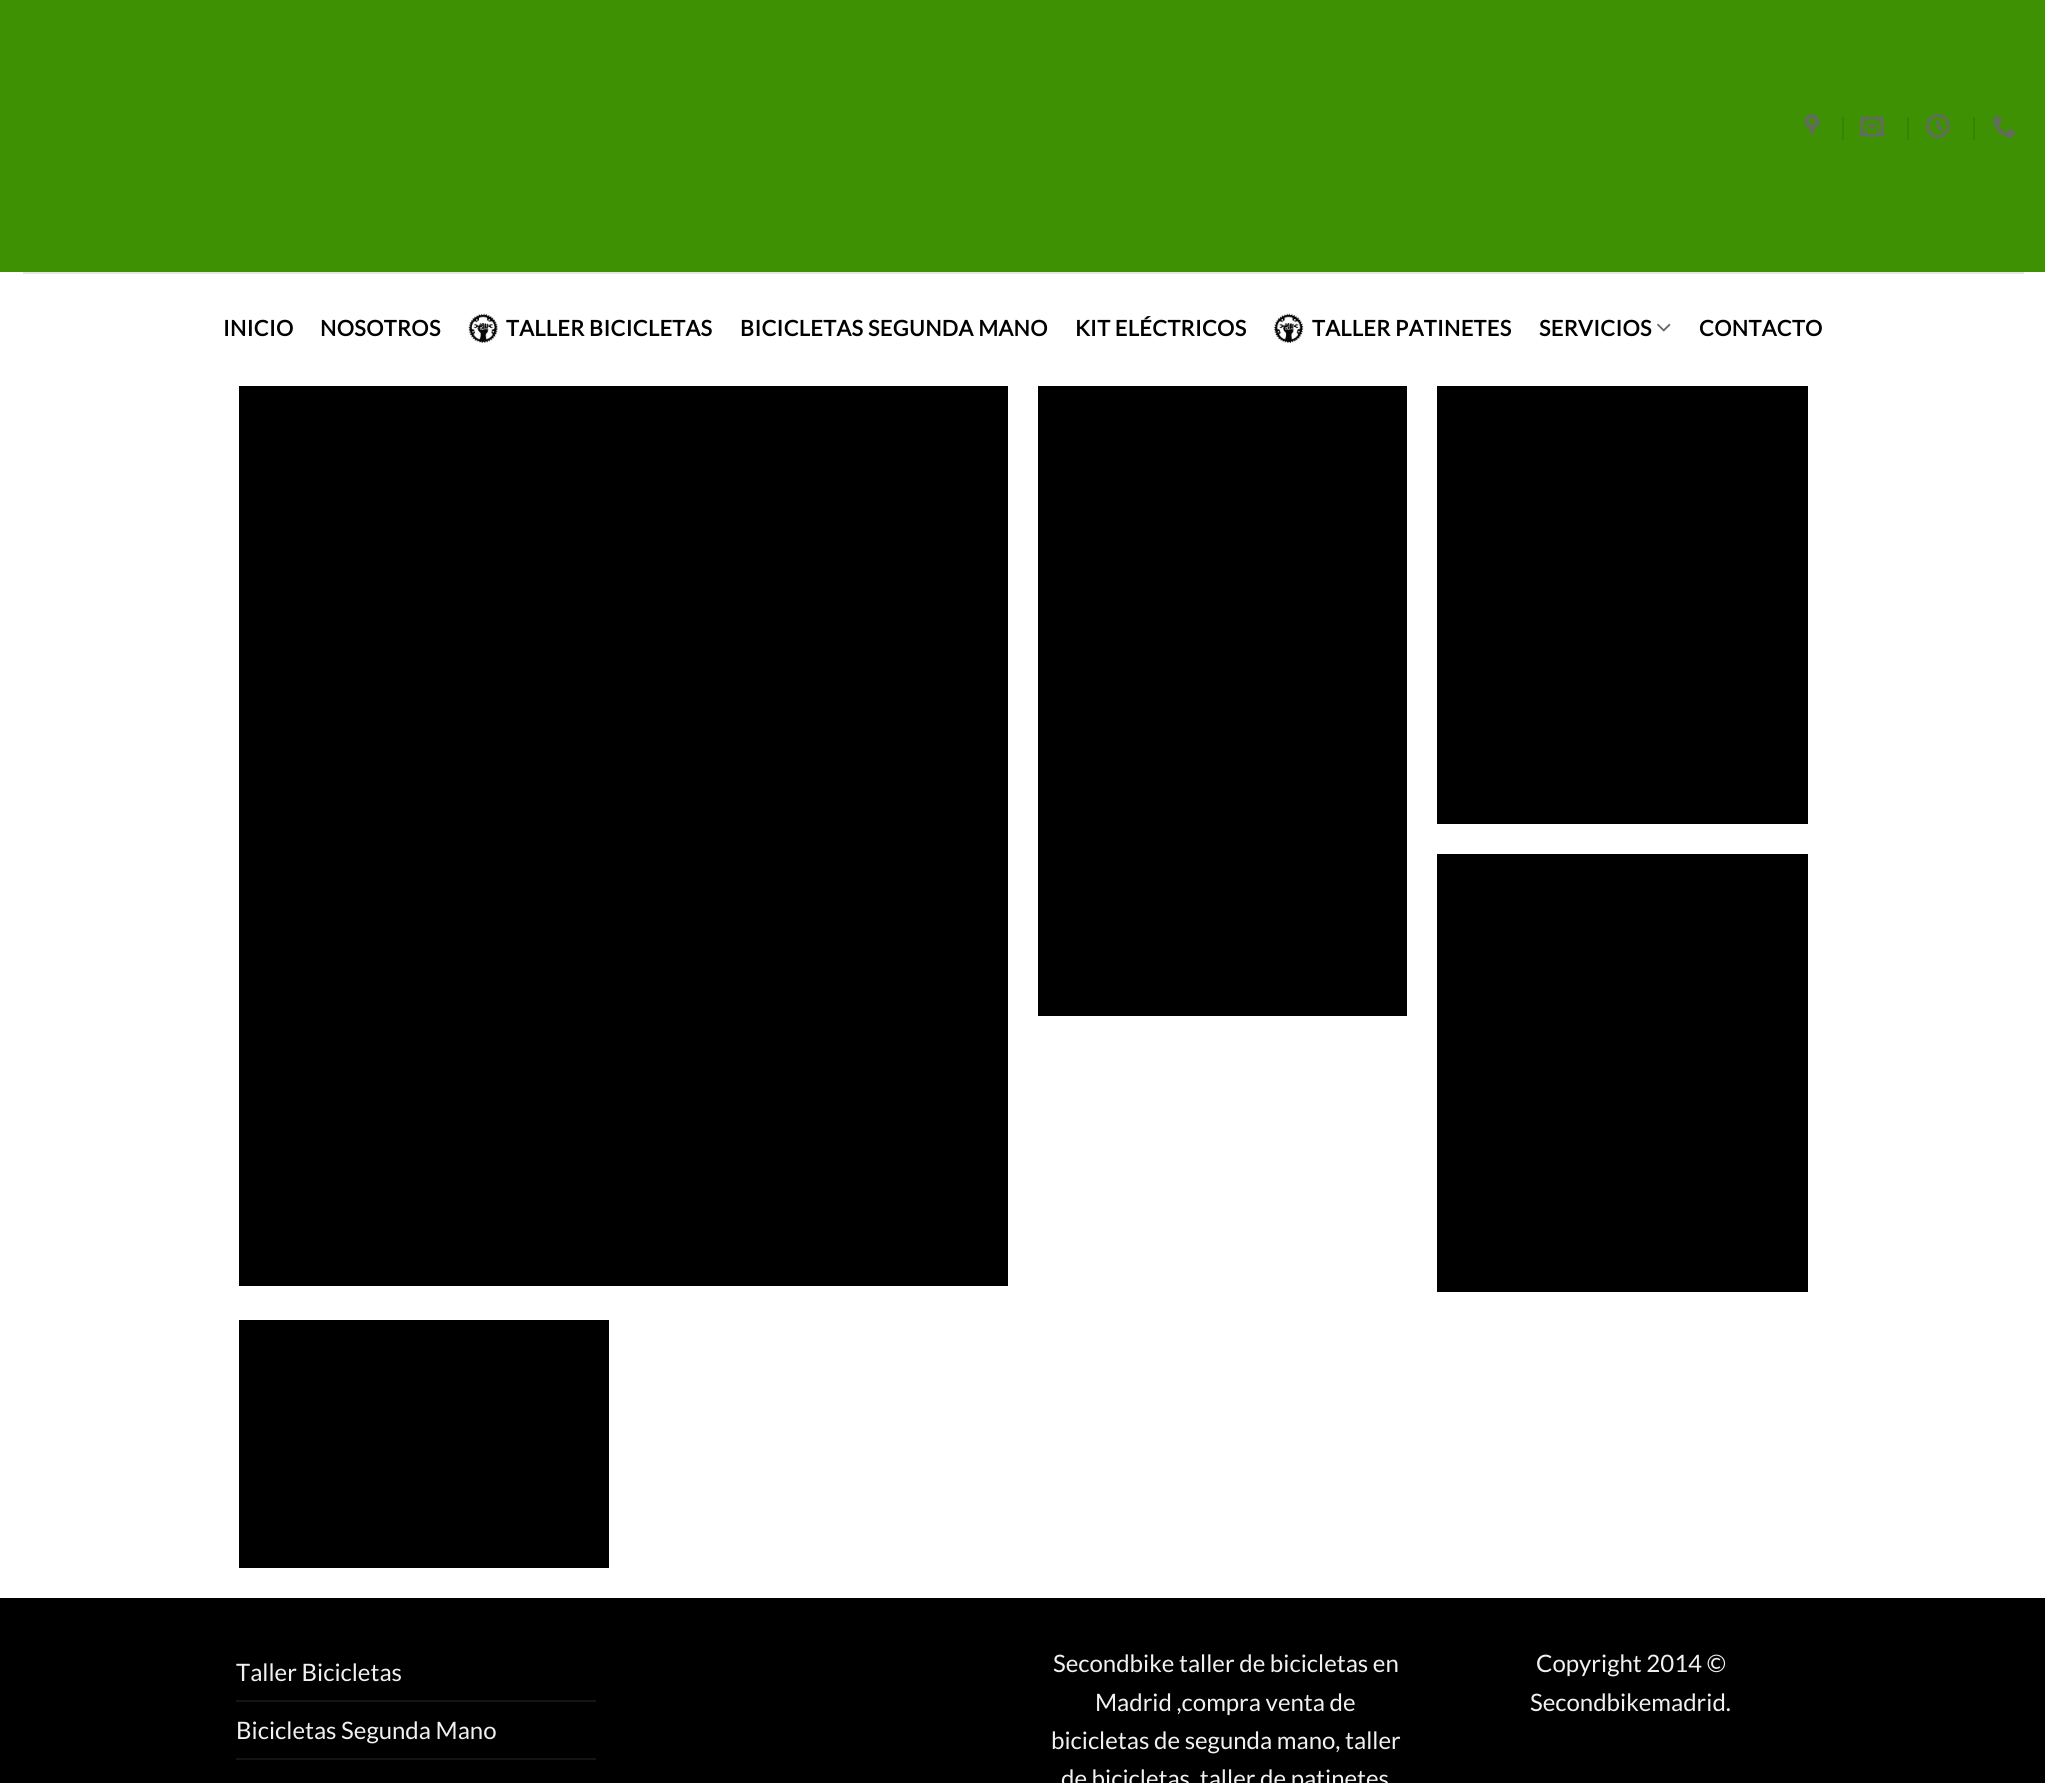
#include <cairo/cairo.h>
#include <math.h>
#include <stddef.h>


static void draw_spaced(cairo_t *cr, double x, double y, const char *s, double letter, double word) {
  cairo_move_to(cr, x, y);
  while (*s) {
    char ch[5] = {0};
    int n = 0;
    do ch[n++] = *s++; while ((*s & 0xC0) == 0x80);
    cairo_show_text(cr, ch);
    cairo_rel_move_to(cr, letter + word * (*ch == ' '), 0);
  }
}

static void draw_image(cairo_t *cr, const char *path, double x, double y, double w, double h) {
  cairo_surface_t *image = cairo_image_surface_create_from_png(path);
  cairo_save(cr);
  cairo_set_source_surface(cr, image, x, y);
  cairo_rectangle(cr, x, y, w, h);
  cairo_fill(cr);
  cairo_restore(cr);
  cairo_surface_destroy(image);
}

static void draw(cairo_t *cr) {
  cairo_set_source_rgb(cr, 1, 1, 1);
  cairo_paint(cr);
  cairo_set_source_rgb(cr, 63 / 255.0, 145 / 255.0, 4 / 255.0);
  cairo_rectangle(cr, 0, 0, 2045, 272);
  cairo_fill(cr);
  draw_image(cr, "images/1.png", 1804, 114, 16, 23);
  cairo_set_source_rgb(cr, 57 / 255.0, 131 / 255.0, 4 / 255.0);
  cairo_rectangle(cr, 1842, 117, 2, 23);
  cairo_fill(cr);
  draw_image(cr, "images/2.png", 1860, 117, 24, 20);
  cairo_rectangle(cr, 1907, 117, 2, 23);
  cairo_fill(cr);
  draw_image(cr, "images/3.png", 1926, 114, 24, 24);
  cairo_rectangle(cr, 1973, 117, 2, 23);
  cairo_fill(cr);
  draw_image(cr, "images/4.png", 1992, 115, 24, 23);
  cairo_set_source_rgb(cr, 230 / 255.0, 230 / 255.0, 230 / 255.0);
  cairo_rectangle(cr, 23, 272, 2001, 2);
  cairo_fill(cr);
  draw_image(cr, "images/5.png", 468, 313, 30, 31);
  draw_image(cr, "images/6.png", 1273, 313, 31, 31);
  draw_image(cr, "images/7.png", 1657, 323, 14, 9);
  cairo_set_source_rgb(cr, 0, 0, 0);
  cairo_rectangle(cr, 239, 386, 769, 900);
  cairo_fill(cr);
  cairo_rectangle(cr, 1038, 386, 369, 630);
  cairo_fill(cr);
  cairo_rectangle(cr, 1437, 386, 371, 438);
  cairo_fill(cr);
  cairo_rectangle(cr, 1437, 854, 371, 438);
  cairo_fill(cr);
  cairo_rectangle(cr, 239, 1320, 370, 248);
  cairo_fill(cr);
  cairo_rectangle(cr, 0, 1598, 2045, 185);
  cairo_fill(cr);
  cairo_set_source_rgb(cr, 20 / 255.0, 20 / 255.0, 20 / 255.0);
  cairo_rectangle(cr, 236, 1700, 360, 2);
  cairo_fill(cr);
  cairo_rectangle(cr, 236, 1758, 360, 2);
  cairo_fill(cr);
  cairo_select_font_face(cr, "Lato", CAIRO_FONT_SLANT_NORMAL, CAIRO_FONT_WEIGHT_BOLD);
  cairo_set_font_size(cr, 21.6);
  cairo_set_source_rgb(cr, 0, 0, 0);
  draw_spaced(cr, 223, 336, "INICIO", 0.4, 0);
  draw_spaced(cr, 320, 336, "NOSOTROS", 0.4, 0);
  draw_spaced(cr, 506, 336, "TALLER BICICLETAS", 0.4, 0);
  draw_spaced(cr, 740, 336, "BICICLETAS SEGUNDA MANO", 0.4, 0);
  draw_spaced(cr, 1075, 336, "KIT ELÉCTRICOS", 0.4, 0);
  draw_spaced(cr, 1312, 336, "TALLER PATINETES", 0.4, 0);
  draw_spaced(cr, 1539, 336, "SERVICIOS", 0.4, 0);
  draw_spaced(cr, 1699, 336, "CONTACTO", 0.4, 0);
  cairo_select_font_face(cr, "Lato", CAIRO_FONT_SLANT_NORMAL, CAIRO_FONT_WEIGHT_NORMAL);
  cairo_set_font_size(cr, 24);
  cairo_set_source_rgb(cr, 241 / 255.0, 241 / 255.0, 241 / 255.0);
  cairo_move_to(cr, 236, 1681);
  cairo_show_text(cr, "Taller Bicicletas");
  cairo_move_to(cr, 236, 1739);
  cairo_show_text(cr, "Bicicletas Segunda Mano");
  cairo_move_to(cr, 1053, 1672);
  cairo_show_text(cr, "Secondbike taller de bicicletas en");
  cairo_move_to(cr, 1095, 1711);
  cairo_show_text(cr, "Madrid ,compra venta de");
  cairo_move_to(cr, 1051, 1749);
  cairo_show_text(cr, "bicicletas de segunda mano, taller");
  cairo_move_to(cr, 1061, 1787);
  cairo_show_text(cr, "de bicicletas, taller de patinetes");
  cairo_move_to(cr, 1536, 1672);
  cairo_show_text(cr, "Copyright 2014 ©");
  cairo_move_to(cr, 1530, 1711);
  cairo_show_text(cr, "Secondbikemadrid.");
}

int main(void) {
  cairo_surface_t *surface = cairo_image_surface_create(CAIRO_FORMAT_RGB24, 2045, 1783);
  cairo_t *cr = cairo_create(surface);
  cairo_font_options_t *options = cairo_font_options_create();
  cairo_font_options_set_hint_metrics(options, CAIRO_HINT_METRICS_OFF);
  cairo_font_options_set_hint_style(options, CAIRO_HINT_STYLE_NONE);
  cairo_set_font_options(cr, options);
  cairo_set_miter_limit(cr, 4);
  draw(cr);
  cairo_surface_write_to_png(surface, "out.png");
  cairo_font_options_destroy(options);
  cairo_destroy(cr);
  cairo_surface_destroy(surface);
  return 0;
}
